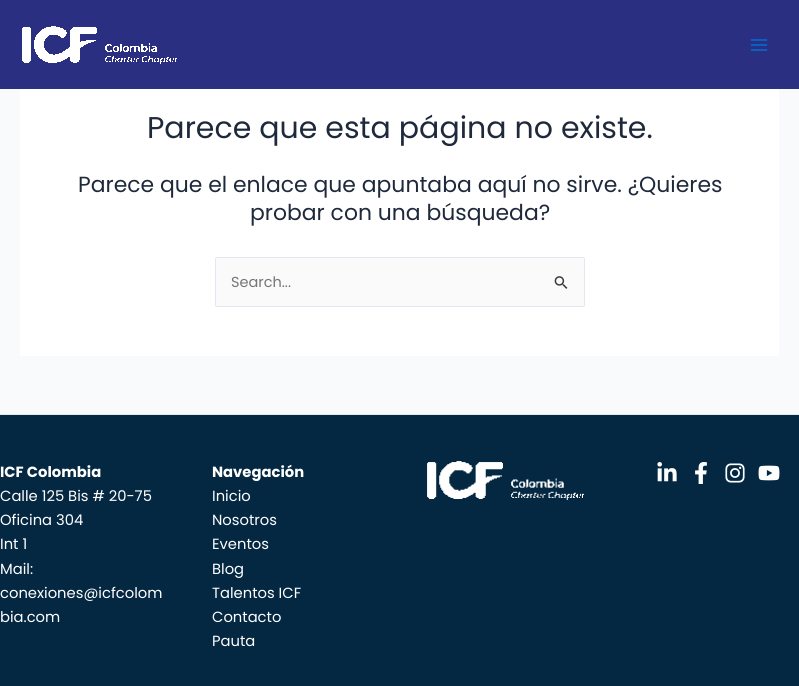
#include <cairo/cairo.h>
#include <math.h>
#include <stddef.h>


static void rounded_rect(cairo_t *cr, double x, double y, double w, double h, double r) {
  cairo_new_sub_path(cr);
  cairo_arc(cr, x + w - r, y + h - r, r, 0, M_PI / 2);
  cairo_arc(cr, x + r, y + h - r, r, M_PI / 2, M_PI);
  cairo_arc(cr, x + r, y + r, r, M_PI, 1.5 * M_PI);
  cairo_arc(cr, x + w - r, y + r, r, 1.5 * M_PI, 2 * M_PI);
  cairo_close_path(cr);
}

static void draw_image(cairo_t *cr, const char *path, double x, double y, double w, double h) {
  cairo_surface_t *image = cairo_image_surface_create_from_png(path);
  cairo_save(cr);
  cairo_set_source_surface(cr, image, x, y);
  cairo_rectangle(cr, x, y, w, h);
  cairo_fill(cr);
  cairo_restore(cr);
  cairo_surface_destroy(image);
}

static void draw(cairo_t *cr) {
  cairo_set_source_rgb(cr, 249 / 255.0, 250 / 255.0, 251 / 255.0);
  cairo_paint(cr);
  cairo_set_source_rgb(cr, 43 / 255.0, 47 / 255.0, 130 / 255.0);
  cairo_rectangle(cr, 0, 0, 799, 89);
  cairo_fill(cr);
  draw_image(cr, "images/1.png", 22, 26, 155, 38);
  draw_image(cr, "images/2.png", 750, 39, 18, 12);
  cairo_set_source_rgb(cr, 1, 1, 1);
  cairo_rectangle(cr, 20, 89, 759, 267);
  cairo_fill(cr);
  cairo_set_source_rgb(cr, 250 / 255.0, 250 / 255.0, 250 / 255.0);
  rounded_rect(cr, 215.5, 257.5, 369, 49, 1.5);
  cairo_fill_preserve(cr);
  cairo_set_source_rgb(cr, 226 / 255.0, 232 / 255.0, 240 / 255.0);
  cairo_set_line_width(cr, 1);
  cairo_stroke(cr);
  draw_image(cr, "images/3.png", 554, 276, 14, 13);
  cairo_set_source_rgb(cr, 5 / 255.0, 40 / 255.0, 66 / 255.0);
  cairo_rectangle(cr, 0, 415, 799, 271);
  cairo_fill(cr);
  cairo_set_source_rgb(cr, 226 / 255.0, 232 / 255.0, 240 / 255.0);
  cairo_rectangle(cr, 0, 414, 799, 1);
  cairo_fill(cr);
  draw_image(cr, "images/4.png", 427, 461, 157, 39);
  draw_image(cr, "images/5.png", 657, 462, 20, 20);
  draw_image(cr, "images/6.png", 695, 462, 12, 22);
  draw_image(cr, "images/7.png", 725, 463, 20, 20);
  draw_image(cr, "images/8.png", 758, 465, 22, 16);
  cairo_select_font_face(cr, "Poppins", CAIRO_FONT_SLANT_NORMAL, CAIRO_FONT_WEIGHT_NORMAL);
  cairo_set_font_size(cr, 30);
  cairo_set_source_rgb(cr, 30 / 255.0, 41 / 255.0, 59 / 255.0);
  cairo_move_to(cr, 147, 138);
  cairo_show_text(cr, "Parece que esta página no existe.");
  cairo_set_font_size(cr, 21.9);
  cairo_move_to(cr, 78, 192);
  cairo_show_text(cr, "Parece que el enlace que apuntaba aquí no sirve. ¿Quieres");
  cairo_move_to(cr, 250, 220);
  cairo_show_text(cr, "probar con una búsqueda?");
  cairo_set_font_size(cr, 14.5);
  cairo_set_source_rgb(cr, 117 / 255.0, 117 / 255.0, 117 / 255.0);
  cairo_move_to(cr, 231, 287);
  cairo_show_text(cr, "Search...");
  cairo_select_font_face(cr, "Poppins", CAIRO_FONT_SLANT_NORMAL, CAIRO_FONT_WEIGHT_BOLD);
  cairo_set_font_size(cr, 14.75);
  cairo_set_source_rgb(cr, 1, 1, 1);
  cairo_move_to(cr, 0, 477);
  cairo_show_text(cr, "ICF Colombia");
  cairo_select_font_face(cr, "Poppins", CAIRO_FONT_SLANT_NORMAL, CAIRO_FONT_WEIGHT_NORMAL);
  cairo_move_to(cr, 0, 501);
  cairo_show_text(cr, "Calle 125 Bis # 20-75");
  cairo_move_to(cr, 0, 525);
  cairo_show_text(cr, "Oficina 304");
  cairo_move_to(cr, 0, 549);
  cairo_show_text(cr, "Int 1");
  cairo_move_to(cr, 0, 574);
  cairo_show_text(cr, "Mail:");
  cairo_move_to(cr, 0, 598);
  cairo_show_text(cr, "conexiones@icfcolom");
  cairo_move_to(cr, 0, 622);
  cairo_show_text(cr, "bia.com");
  cairo_select_font_face(cr, "Poppins", CAIRO_FONT_SLANT_NORMAL, CAIRO_FONT_WEIGHT_BOLD);
  cairo_move_to(cr, 212, 477);
  cairo_show_text(cr, "Navegación");
  cairo_select_font_face(cr, "Poppins", CAIRO_FONT_SLANT_NORMAL, CAIRO_FONT_WEIGHT_NORMAL);
  cairo_move_to(cr, 212, 501);
  cairo_show_text(cr, "Inicio");
  cairo_move_to(cr, 212, 525);
  cairo_show_text(cr, "Nosotros");
  cairo_move_to(cr, 212, 549);
  cairo_show_text(cr, "Eventos");
  cairo_move_to(cr, 212, 574);
  cairo_show_text(cr, "Blog");
  cairo_move_to(cr, 212, 598);
  cairo_show_text(cr, "Talentos ICF");
  cairo_move_to(cr, 212, 622);
  cairo_show_text(cr, "Contacto");
  cairo_move_to(cr, 212, 646);
  cairo_show_text(cr, "Pauta");
}

int main(void) {
  cairo_surface_t *surface = cairo_image_surface_create(CAIRO_FORMAT_RGB24, 799, 686);
  cairo_t *cr = cairo_create(surface);
  cairo_font_options_t *options = cairo_font_options_create();
  cairo_font_options_set_hint_metrics(options, CAIRO_HINT_METRICS_OFF);
  cairo_font_options_set_hint_style(options, CAIRO_HINT_STYLE_NONE);
  cairo_set_font_options(cr, options);
  cairo_set_miter_limit(cr, 4);
  draw(cr);
  cairo_surface_write_to_png(surface, "out.png");
  cairo_font_options_destroy(options);
  cairo_destroy(cr);
  cairo_surface_destroy(surface);
  return 0;
}
